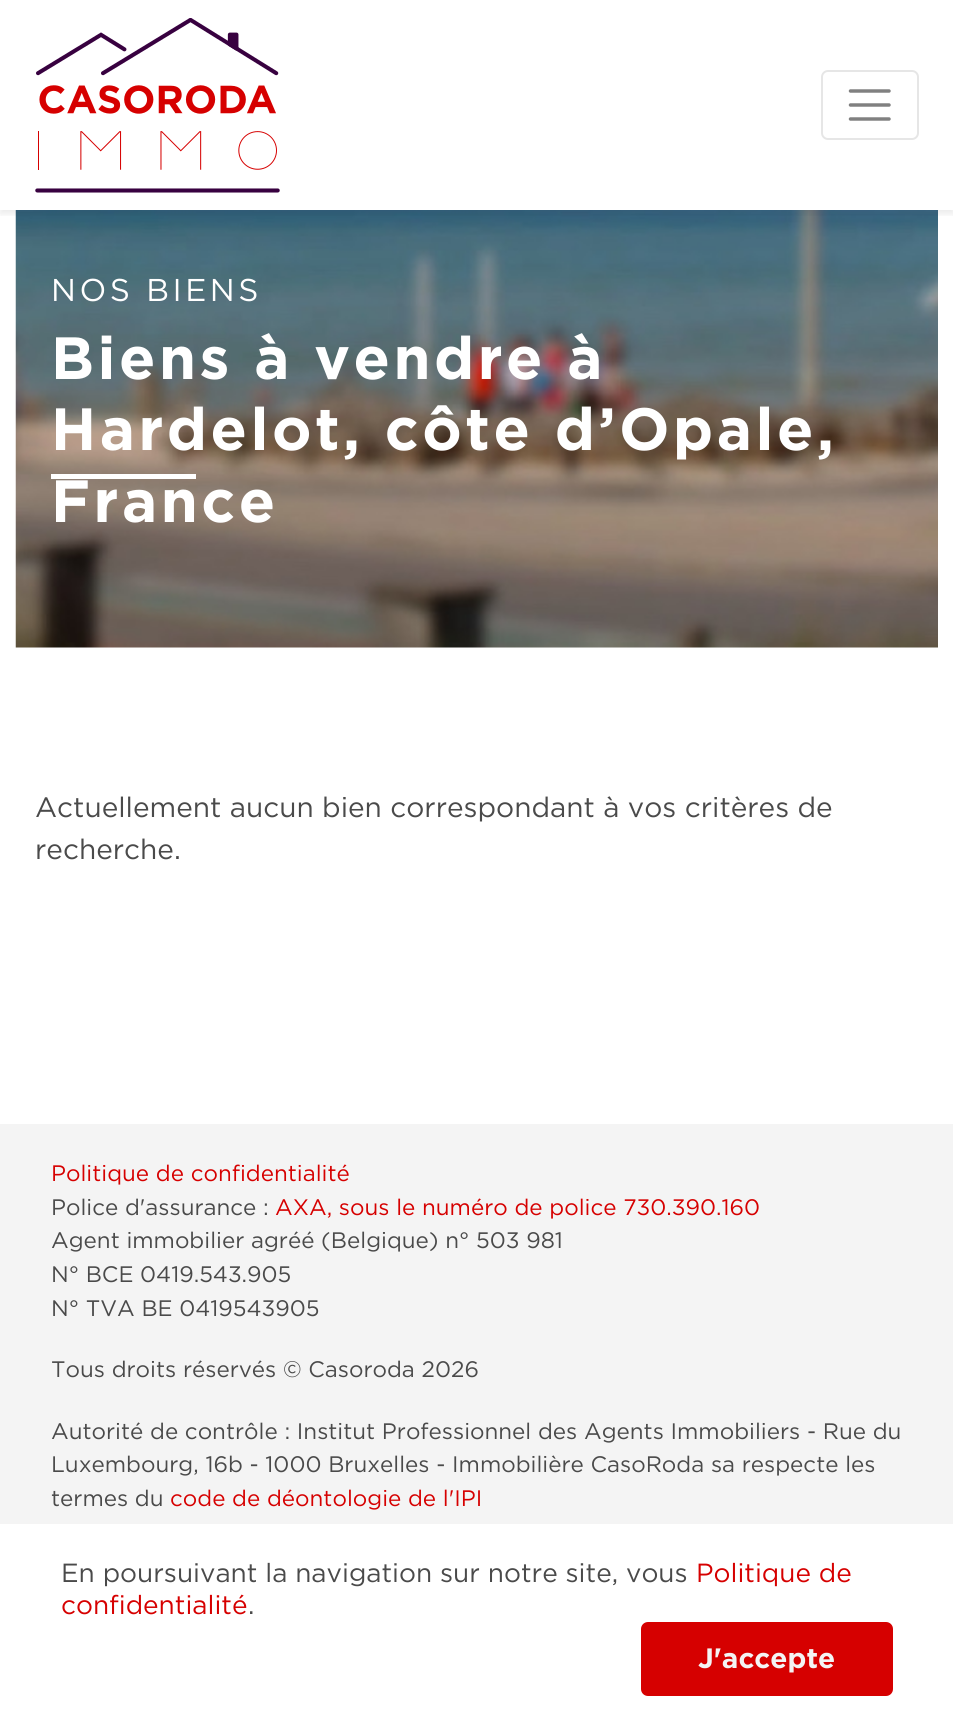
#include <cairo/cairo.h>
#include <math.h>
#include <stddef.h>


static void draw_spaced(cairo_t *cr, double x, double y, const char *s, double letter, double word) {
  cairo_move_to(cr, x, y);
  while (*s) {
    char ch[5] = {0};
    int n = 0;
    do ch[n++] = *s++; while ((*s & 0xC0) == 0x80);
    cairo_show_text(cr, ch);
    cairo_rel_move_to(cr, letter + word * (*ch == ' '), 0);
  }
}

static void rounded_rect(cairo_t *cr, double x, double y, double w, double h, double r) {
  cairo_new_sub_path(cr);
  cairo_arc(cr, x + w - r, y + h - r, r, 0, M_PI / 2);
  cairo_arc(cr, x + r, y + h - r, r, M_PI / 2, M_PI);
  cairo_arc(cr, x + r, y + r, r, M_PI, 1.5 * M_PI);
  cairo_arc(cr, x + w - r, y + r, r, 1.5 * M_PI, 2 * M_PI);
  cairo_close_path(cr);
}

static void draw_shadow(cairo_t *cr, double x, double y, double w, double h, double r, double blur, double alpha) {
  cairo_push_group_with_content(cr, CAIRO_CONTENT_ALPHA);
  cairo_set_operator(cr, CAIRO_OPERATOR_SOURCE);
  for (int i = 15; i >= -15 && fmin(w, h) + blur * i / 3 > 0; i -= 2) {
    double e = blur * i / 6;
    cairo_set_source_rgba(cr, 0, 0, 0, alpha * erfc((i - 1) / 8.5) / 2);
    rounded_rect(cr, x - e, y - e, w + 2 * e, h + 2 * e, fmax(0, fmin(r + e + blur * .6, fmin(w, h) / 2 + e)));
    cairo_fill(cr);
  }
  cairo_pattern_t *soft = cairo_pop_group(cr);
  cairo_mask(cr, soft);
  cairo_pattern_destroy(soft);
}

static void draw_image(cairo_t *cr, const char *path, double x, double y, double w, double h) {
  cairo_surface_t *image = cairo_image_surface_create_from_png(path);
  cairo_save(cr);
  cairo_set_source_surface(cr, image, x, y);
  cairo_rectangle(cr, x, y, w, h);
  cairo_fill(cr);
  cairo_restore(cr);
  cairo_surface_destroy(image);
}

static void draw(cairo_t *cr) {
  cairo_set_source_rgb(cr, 1, 1, 1);
  cairo_paint(cr);
  draw_image(cr, "images/2.png", 15, 210, 923, 438);
  cairo_save(cr);
  cairo_rectangle(cr, 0, 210, 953, 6);
  cairo_clip(cr);
  cairo_set_source_rgb(cr, 0, 0, 0);
  draw_shadow(cr, 0, 4, 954, 210, 0, 3.5, 0.08);
  cairo_restore(cr);
  draw_image(cr, "images/1.png", 35, 18, 245, 175);
  rounded_rect(cr, 822, 71, 96, 68, 6);
  cairo_set_source_rgb(cr, 230 / 255.0, 230 / 255.0, 230 / 255.0);
  cairo_stroke(cr);
  cairo_new_path(cr);
  cairo_move_to(cr, 850.5, 91);
  cairo_line_to(cr, 889, 91);
  cairo_move_to(cr, 850.5, 105);
  cairo_line_to(cr, 889, 105);
  cairo_move_to(cr, 850.5, 119);
  cairo_line_to(cr, 889, 119);
  cairo_set_source_rgb(cr, 128 / 255.0, 128 / 255.0, 128 / 255.0);
  cairo_set_line_width(cr, 3.5);
  cairo_set_line_cap(cr, CAIRO_LINE_CAP_ROUND);
  cairo_stroke(cr);
  cairo_set_source_rgb(cr, 1, 1, 1);
  cairo_rectangle(cr, 51, 474, 145, 5);
  cairo_fill(cr);
  cairo_set_source_rgb(cr, 244 / 255.0, 244 / 255.0, 244 / 255.0);
  cairo_rectangle(cr, 0, 1124, 953, 400);
  cairo_fill(cr);
  cairo_set_source_rgb(cr, 214 / 255.0, 0, 0);
  rounded_rect(cr, 642, 1623, 250, 72, 6);
  cairo_fill_preserve(cr);
  cairo_set_line_width(cr, 2);
  cairo_set_line_cap(cr, CAIRO_LINE_CAP_BUTT);
  cairo_stroke(cr);
  cairo_select_font_face(cr, "Gotham", CAIRO_FONT_SLANT_NORMAL, CAIRO_FONT_WEIGHT_NORMAL);
  cairo_set_font_size(cr, 31.5);
  cairo_set_source_rgb(cr, 1, 1, 1);
  draw_spaced(cr, 51, 301, "NOS BIENS", 3.5, 0);
  cairo_select_font_face(cr, "Gotham", CAIRO_FONT_SLANT_NORMAL, CAIRO_FONT_WEIGHT_BOLD);
  cairo_set_font_size(cr, 59.5);
  draw_spaced(cr, 51, 379, "Biens à vendre à", 3.5, 0);
  draw_spaced(cr, 51, 450, "Hardelot", 3.5, 0);
  draw_spaced(cr, 343, 450, ", côte d’Opale,", 3.5, 0);
  draw_spaced(cr, 51, 522, "France", 3.5, 0);
  cairo_select_font_face(cr, "Gotham", CAIRO_FONT_SLANT_NORMAL, CAIRO_FONT_WEIGHT_NORMAL);
  cairo_set_font_size(cr, 28);
  cairo_set_source_rgb(cr, 74 / 255.0, 74 / 255.0, 74 / 255.0);
  cairo_move_to(cr, 35, 817);
  cairo_show_text(cr, "Actuellement aucun bien correspondant à vos critères de");
  cairo_move_to(cr, 35, 859);
  cairo_show_text(cr, "recherche.");
  cairo_set_font_size(cr, 22.4);
  cairo_set_source_rgb(cr, 214 / 255.0, 0, 0);
  cairo_move_to(cr, 51, 1181);
  cairo_show_text(cr, "Politique de confidentialité");
  cairo_set_source_rgb(cr, 74 / 255.0, 74 / 255.0, 74 / 255.0);
  cairo_move_to(cr, 51, 1215);
  cairo_show_text(cr, "Police d'assurance :");
  cairo_set_source_rgb(cr, 214 / 255.0, 0, 0);
  cairo_move_to(cr, 275, 1215);
  cairo_show_text(cr, "AXA, sous le numéro de police 730.390.160");
  cairo_set_source_rgb(cr, 74 / 255.0, 74 / 255.0, 74 / 255.0);
  cairo_move_to(cr, 51, 1248);
  cairo_show_text(cr, "Agent immobilier agréé (Belgique) n° 503 981");
  cairo_move_to(cr, 51, 1282);
  cairo_show_text(cr, "N° BCE 0419.543.905");
  cairo_move_to(cr, 51, 1316);
  cairo_show_text(cr, "N° TVA BE 0419543905");
  cairo_move_to(cr, 51, 1377);
  cairo_show_text(cr, "Tous droits réservés © Casoroda 2026");
  cairo_move_to(cr, 51, 1439);
  cairo_show_text(cr, "Autorité de contrôle : Institut Professionnel des Agents Immobiliers - Rue du");
  cairo_move_to(cr, 51, 1472);
  cairo_show_text(cr, "Luxembourg, 16b - 1000 Bruxelles - Immobilière CasoRoda sa respecte les");
  cairo_move_to(cr, 51, 1506);
  cairo_show_text(cr, "termes du");
  cairo_set_source_rgb(cr, 214 / 255.0, 0, 0);
  cairo_move_to(cr, 170, 1506);
  cairo_show_text(cr, "code de déontologie de l'IPI");
  cairo_set_font_size(cr, 26.25);
  cairo_set_source_rgb(cr, 74 / 255.0, 74 / 255.0, 74 / 255.0);
  cairo_move_to(cr, 61, 1582);
  cairo_show_text(cr, "En poursuivant la navigation sur notre site, vous");
  cairo_set_source_rgb(cr, 214 / 255.0, 0, 0);
  cairo_move_to(cr, 696, 1582);
  cairo_show_text(cr, "Politique de");
  cairo_move_to(cr, 61, 1614);
  cairo_show_text(cr, "confidentialité");
  cairo_set_source_rgb(cr, 74 / 255.0, 74 / 255.0, 74 / 255.0);
  cairo_move_to(cr, 248, 1614);
  cairo_show_text(cr, ".");
  cairo_select_font_face(cr, "Gotham", CAIRO_FONT_SLANT_NORMAL, CAIRO_FONT_WEIGHT_BOLD);
  cairo_set_font_size(cr, 28);
  cairo_set_source_rgb(cr, 244 / 255.0, 244 / 255.0, 244 / 255.0);
  cairo_move_to(cr, 698, 1668);
  cairo_show_text(cr, "J'accepte");
}

int main(void) {
  cairo_surface_t *surface = cairo_image_surface_create(CAIRO_FORMAT_RGB24, 953, 1730);
  cairo_t *cr = cairo_create(surface);
  cairo_font_options_t *options = cairo_font_options_create();
  cairo_font_options_set_hint_metrics(options, CAIRO_HINT_METRICS_OFF);
  cairo_font_options_set_hint_style(options, CAIRO_HINT_STYLE_NONE);
  cairo_set_font_options(cr, options);
  cairo_set_miter_limit(cr, 4);
  draw(cr);
  cairo_surface_write_to_png(surface, "out.png");
  cairo_font_options_destroy(options);
  cairo_destroy(cr);
  cairo_surface_destroy(surface);
  return 0;
}
